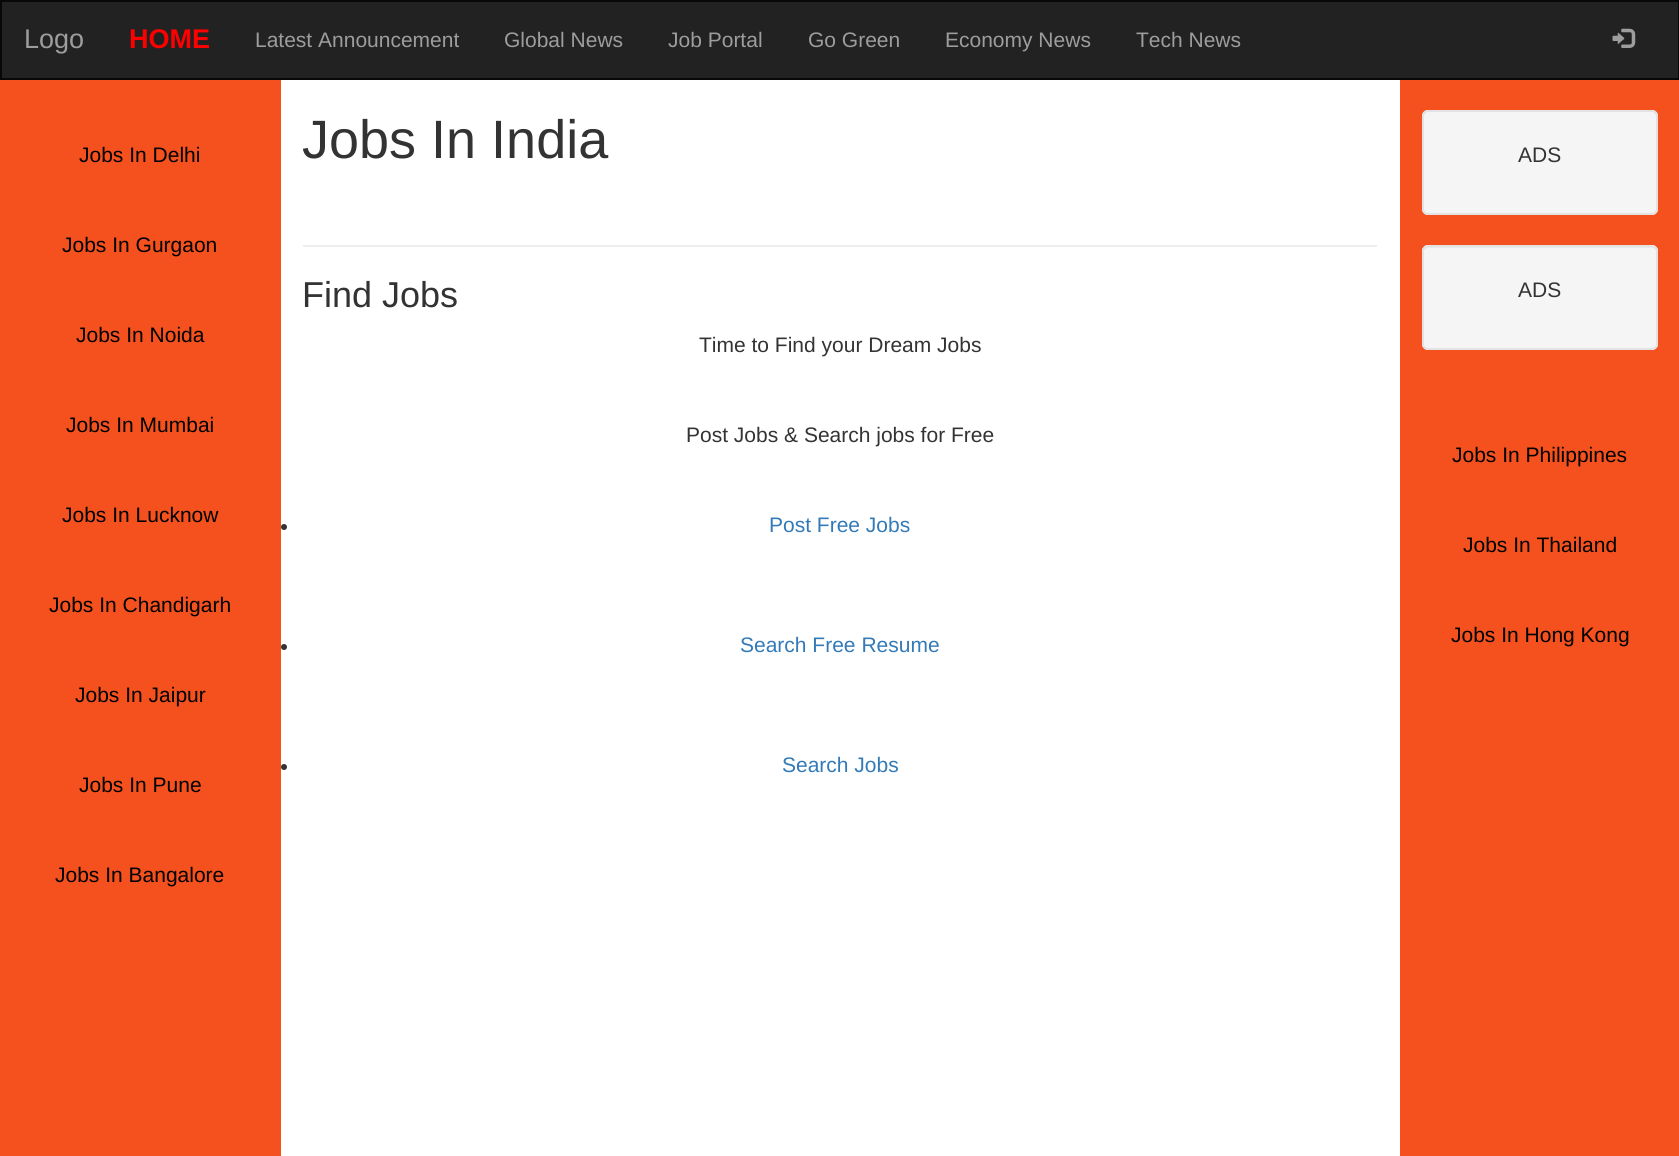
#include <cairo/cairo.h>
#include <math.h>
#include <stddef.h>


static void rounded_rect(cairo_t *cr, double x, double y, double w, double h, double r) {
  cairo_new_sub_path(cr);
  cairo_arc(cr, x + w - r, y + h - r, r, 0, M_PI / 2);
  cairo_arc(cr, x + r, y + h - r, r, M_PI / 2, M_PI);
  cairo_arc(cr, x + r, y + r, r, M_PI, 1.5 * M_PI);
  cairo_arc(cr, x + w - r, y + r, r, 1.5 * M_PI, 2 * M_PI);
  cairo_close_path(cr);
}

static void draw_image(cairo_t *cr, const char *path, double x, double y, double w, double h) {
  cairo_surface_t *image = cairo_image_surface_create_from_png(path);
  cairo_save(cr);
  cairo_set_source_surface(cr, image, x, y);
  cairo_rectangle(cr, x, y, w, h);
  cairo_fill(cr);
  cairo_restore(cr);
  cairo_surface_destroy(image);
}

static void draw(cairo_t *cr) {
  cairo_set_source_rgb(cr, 1, 1, 1);
  cairo_paint(cr);
  cairo_set_source_rgb(cr, 34 / 255.0, 34 / 255.0, 34 / 255.0);
  cairo_rectangle(cr, 1, 1, 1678, 78);
  cairo_fill_preserve(cr);
  cairo_set_source_rgb(cr, 8 / 255.0, 8 / 255.0, 8 / 255.0);
  cairo_stroke(cr);
  draw_image(cr, "images/1.png", 1612, 28, 24, 20);
  cairo_set_source_rgb(cr, 244 / 255.0, 81 / 255.0, 30 / 255.0);
  cairo_rectangle(cr, 0, 80, 281, 1076);
  cairo_fill(cr);
  cairo_set_source_rgb(cr, 238 / 255.0, 238 / 255.0, 238 / 255.0);
  cairo_rectangle(cr, 303, 245, 1074, 2);
  cairo_fill(cr);
  cairo_set_source_rgb(cr, 51 / 255.0, 51 / 255.0, 51 / 255.0);
  cairo_arc(cr, 284, 527, 3, 0, 2 * M_PI);
  cairo_fill(cr);
  cairo_arc(cr, 284, 647, 3, 0, 2 * M_PI);
  cairo_fill(cr);
  cairo_arc(cr, 284, 767, 3, 0, 2 * M_PI);
  cairo_fill(cr);
  cairo_set_source_rgb(cr, 244 / 255.0, 81 / 255.0, 30 / 255.0);
  cairo_rectangle(cr, 1400, 80, 279, 1076);
  cairo_fill(cr);
  cairo_set_source_rgb(cr, 245 / 255.0, 245 / 255.0, 245 / 255.0);
  rounded_rect(cr, 1422, 110, 236, 105, 6);
  cairo_fill(cr);
  cairo_set_source_rgb(cr, 233 / 255.0, 233 / 255.0, 233 / 255.0);
  cairo_new_path(cr);
  cairo_move_to(cr, 1428, 112);
  cairo_line_to(cr, 1652, 112);
  cairo_curve_to(cr, 1654, 112, 1656, 115, 1656, 117);
  cairo_line_to(cr, 1656, 116);
  cairo_curve_to(cr, 1656, 113, 1654, 111, 1651, 111);
  cairo_line_to(cr, 1429, 111);
  cairo_curve_to(cr, 1426, 111, 1424, 113, 1424, 116);
  cairo_line_to(cr, 1424, 117);
  cairo_curve_to(cr, 1424, 115, 1426, 112, 1428, 112);
  cairo_close_path(cr);
  cairo_fill(cr);
  rounded_rect(cr, 1423, 111, 234, 103, 5);
  cairo_set_source_rgb(cr, 227 / 255.0, 227 / 255.0, 227 / 255.0);
  cairo_stroke(cr);
  cairo_set_source_rgb(cr, 245 / 255.0, 245 / 255.0, 245 / 255.0);
  rounded_rect(cr, 1422, 245, 236, 105, 6);
  cairo_fill(cr);
  cairo_set_source_rgb(cr, 233 / 255.0, 233 / 255.0, 233 / 255.0);
  cairo_new_path(cr);
  cairo_move_to(cr, 1428, 248);
  cairo_line_to(cr, 1652, 248);
  cairo_curve_to(cr, 1654, 248, 1656, 250, 1656, 252);
  cairo_line_to(cr, 1656, 251);
  cairo_curve_to(cr, 1656, 248, 1654, 246, 1651, 246);
  cairo_line_to(cr, 1429, 246);
  cairo_curve_to(cr, 1426, 246, 1424, 248, 1424, 251);
  cairo_line_to(cr, 1424, 252);
  cairo_curve_to(cr, 1424, 250, 1426, 248, 1428, 248);
  cairo_close_path(cr);
  cairo_fill(cr);
  rounded_rect(cr, 1423, 246, 234, 103, 5);
  cairo_set_source_rgb(cr, 227 / 255.0, 227 / 255.0, 227 / 255.0);
  cairo_stroke(cr);
  cairo_select_font_face(cr, "Liberation Sans", CAIRO_FONT_SLANT_NORMAL, CAIRO_FONT_WEIGHT_NORMAL);
  cairo_set_font_size(cr, 27);
  cairo_set_source_rgb(cr, 157 / 255.0, 157 / 255.0, 157 / 255.0);
  cairo_move_to(cr, 24, 48);
  cairo_show_text(cr, "Logo");
  cairo_select_font_face(cr, "Liberation Sans", CAIRO_FONT_SLANT_NORMAL, CAIRO_FONT_WEIGHT_BOLD);
  cairo_set_source_rgb(cr, 1, 0, 0);
  cairo_move_to(cr, 129, 48);
  cairo_show_text(cr, "HOME");
  cairo_select_font_face(cr, "Liberation Sans", CAIRO_FONT_SLANT_NORMAL, CAIRO_FONT_WEIGHT_NORMAL);
  cairo_set_font_size(cr, 21);
  cairo_set_source_rgb(cr, 157 / 255.0, 157 / 255.0, 157 / 255.0);
  cairo_move_to(cr, 255, 47);
  cairo_show_text(cr, "Latest Announcement");
  cairo_move_to(cr, 504, 47);
  cairo_show_text(cr, "Global News");
  cairo_move_to(cr, 668, 47);
  cairo_show_text(cr, "Job Portal");
  cairo_move_to(cr, 808, 47);
  cairo_show_text(cr, "Go Green");
  cairo_move_to(cr, 945, 47);
  cairo_show_text(cr, "Economy News");
  cairo_move_to(cr, 1136, 47);
  cairo_show_text(cr, "Tech News");
  cairo_set_source_rgb(cr, 0, 0, 0);
  cairo_move_to(cr, 79, 162);
  cairo_show_text(cr, "Jobs In Delhi");
  cairo_move_to(cr, 62, 252);
  cairo_show_text(cr, "Jobs In Gurgaon");
  cairo_move_to(cr, 76, 342);
  cairo_show_text(cr, "Jobs In Noida");
  cairo_move_to(cr, 66, 432);
  cairo_show_text(cr, "Jobs In Mumbai");
  cairo_move_to(cr, 62, 522);
  cairo_show_text(cr, "Jobs In Lucknow");
  cairo_move_to(cr, 49, 612);
  cairo_show_text(cr, "Jobs In Chandigarh");
  cairo_move_to(cr, 75, 702);
  cairo_show_text(cr, "Jobs In Jaipur");
  cairo_move_to(cr, 79, 792);
  cairo_show_text(cr, "Jobs In Pune");
  cairo_move_to(cr, 55, 882);
  cairo_show_text(cr, "Jobs In Bangalore");
  cairo_set_font_size(cr, 54);
  cairo_set_source_rgb(cr, 51 / 255.0, 51 / 255.0, 51 / 255.0);
  cairo_move_to(cr, 302, 158);
  cairo_show_text(cr, "Jobs In India");
  cairo_set_font_size(cr, 36);
  cairo_move_to(cr, 302, 307);
  cairo_show_text(cr, "Find Jobs");
  cairo_set_font_size(cr, 21);
  cairo_move_to(cr, 699, 352);
  cairo_show_text(cr, "Time to Find your Dream Jobs");
  cairo_move_to(cr, 686, 442);
  cairo_show_text(cr, "Post Jobs & Search jobs for Free");
  cairo_set_source_rgb(cr, 51 / 255.0, 122 / 255.0, 183 / 255.0);
  cairo_move_to(cr, 769, 532);
  cairo_show_text(cr, "Post Free Jobs");
  cairo_move_to(cr, 740, 652);
  cairo_show_text(cr, "Search Free Resume");
  cairo_move_to(cr, 782, 772);
  cairo_show_text(cr, "Search Jobs");
  cairo_set_source_rgb(cr, 51 / 255.0, 51 / 255.0, 51 / 255.0);
  cairo_move_to(cr, 1518, 162);
  cairo_show_text(cr, "ADS");
  cairo_move_to(cr, 1518, 297);
  cairo_show_text(cr, "ADS");
  cairo_set_source_rgb(cr, 0, 0, 0);
  cairo_move_to(cr, 1452, 462);
  cairo_show_text(cr, "Jobs In Philippines");
  cairo_move_to(cr, 1463, 552);
  cairo_show_text(cr, "Jobs In Thailand");
  cairo_move_to(cr, 1451, 642);
  cairo_show_text(cr, "Jobs In Hong Kong");
}

int main(void) {
  cairo_surface_t *surface = cairo_image_surface_create(CAIRO_FORMAT_RGB24, 1679, 1156);
  cairo_t *cr = cairo_create(surface);
  cairo_font_options_t *options = cairo_font_options_create();
  cairo_font_options_set_hint_metrics(options, CAIRO_HINT_METRICS_OFF);
  cairo_font_options_set_hint_style(options, CAIRO_HINT_STYLE_NONE);
  cairo_set_font_options(cr, options);
  cairo_set_miter_limit(cr, 4);
  draw(cr);
  cairo_surface_write_to_png(surface, "out.png");
  cairo_font_options_destroy(options);
  cairo_destroy(cr);
  cairo_surface_destroy(surface);
  return 0;
}
